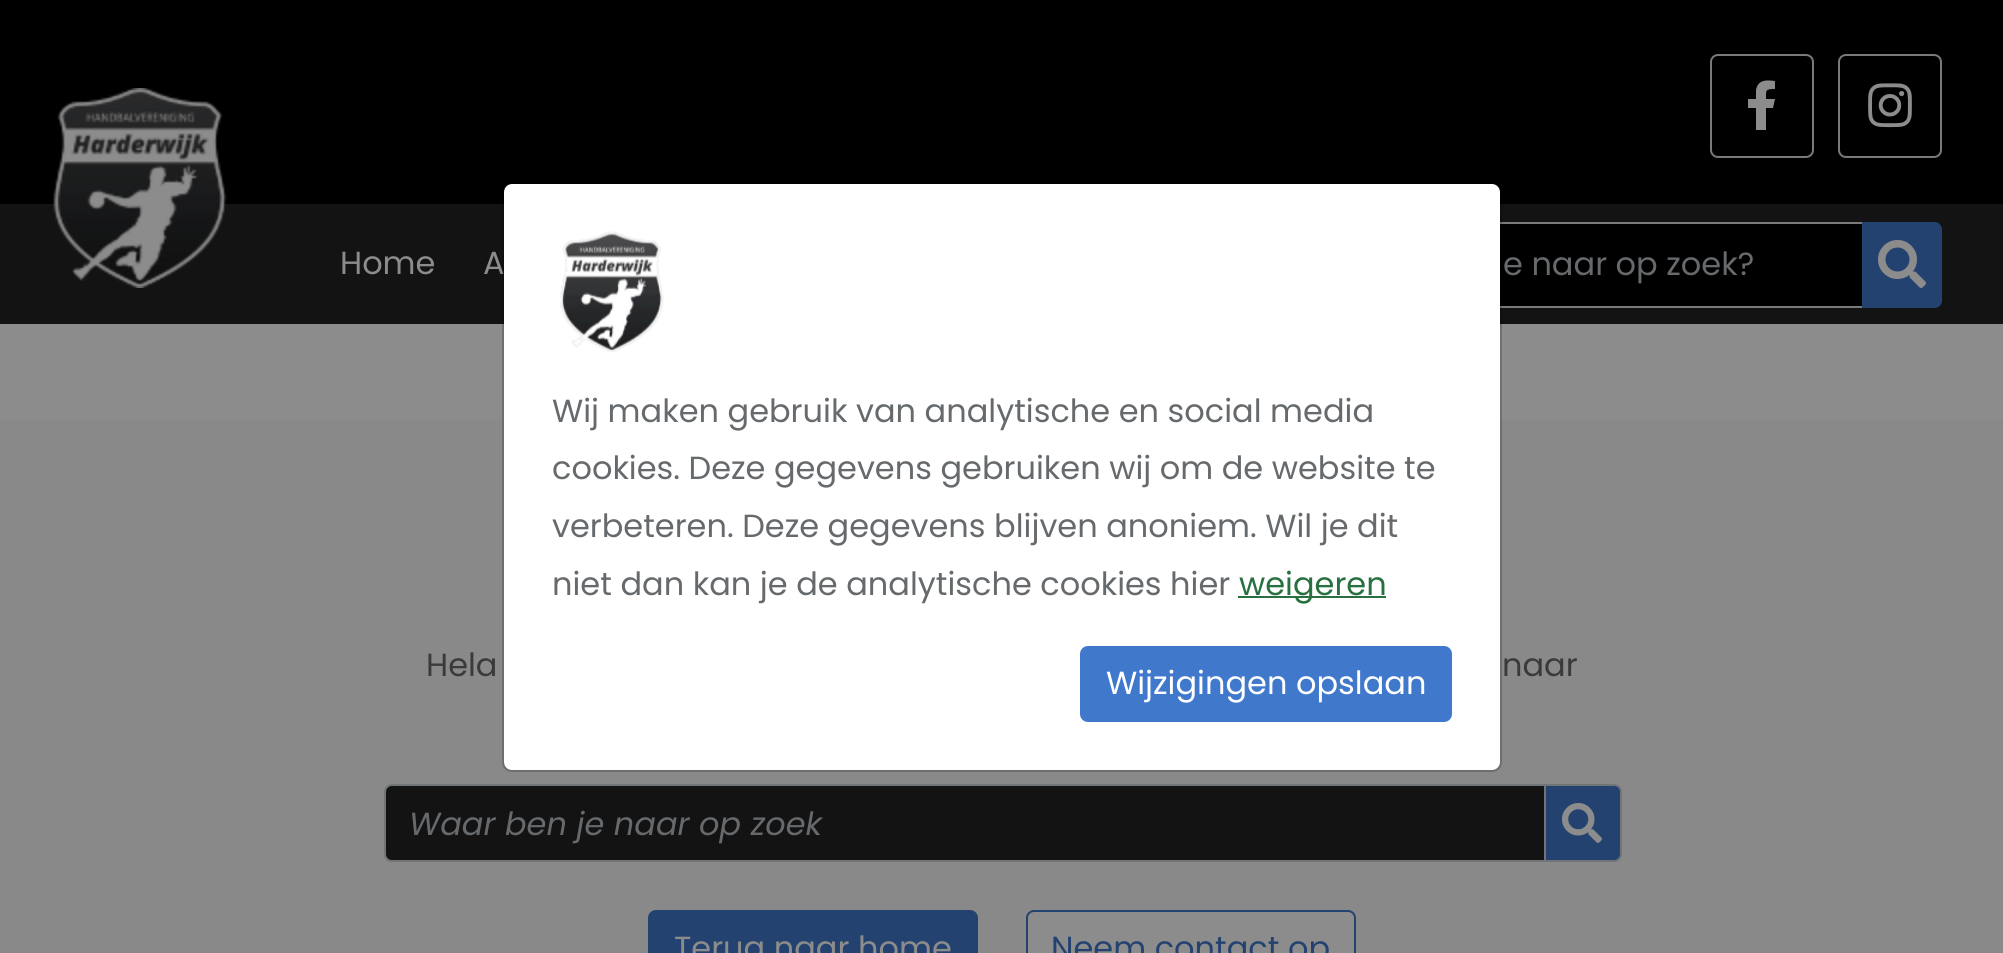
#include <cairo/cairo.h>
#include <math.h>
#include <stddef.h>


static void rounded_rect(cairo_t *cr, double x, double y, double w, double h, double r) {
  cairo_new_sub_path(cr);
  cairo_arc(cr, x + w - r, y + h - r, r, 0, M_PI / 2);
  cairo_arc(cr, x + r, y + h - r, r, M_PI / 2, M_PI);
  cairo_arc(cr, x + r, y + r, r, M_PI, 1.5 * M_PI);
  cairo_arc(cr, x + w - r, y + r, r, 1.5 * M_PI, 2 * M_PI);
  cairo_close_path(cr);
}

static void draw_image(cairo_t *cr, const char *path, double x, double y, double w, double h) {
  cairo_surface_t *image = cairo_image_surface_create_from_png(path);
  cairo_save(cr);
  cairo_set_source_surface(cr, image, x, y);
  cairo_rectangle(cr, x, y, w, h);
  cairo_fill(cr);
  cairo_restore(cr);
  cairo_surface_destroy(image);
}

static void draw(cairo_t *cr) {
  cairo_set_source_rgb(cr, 140 / 255.0, 140 / 255.0, 140 / 255.0);
  cairo_paint(cr);
  cairo_set_source_rgb(cr, 0, 0, 0);
  cairo_rectangle(cr, 0, 0, 2003, 204);
  cairo_fill(cr);
  rounded_rect(cr, 1711, 55, 102, 102, 7);
  cairo_set_source_rgb(cr, 122 / 255.0, 122 / 255.0, 122 / 255.0);
  cairo_stroke(cr);
  cairo_set_source_rgb(cr, 140 / 255.0, 140 / 255.0, 140 / 255.0);
  cairo_new_path(cr);
  cairo_move_to(cr, 1773, 108);
  cairo_line_to(cr, 1766, 108);
  cairo_line_to(cr, 1766, 130);
  cairo_line_to(cr, 1756, 130);
  cairo_line_to(cr, 1756, 108);
  cairo_line_to(cr, 1748, 108);
  cairo_line_to(cr, 1748, 99);
  cairo_line_to(cr, 1756, 99);
  cairo_line_to(cr, 1756, 90);
  cairo_curve_to(cr, 1758, 79, 1767, 80, 1775, 81);
  cairo_line_to(cr, 1775, 89);
  cairo_curve_to(cr, 1765, 89, 1766, 90, 1766, 99);
  cairo_line_to(cr, 1775, 99);
  cairo_close_path(cr);
  cairo_fill(cr);
  rounded_rect(cr, 1839, 55, 102, 102, 7);
  cairo_set_source_rgb(cr, 122 / 255.0, 122 / 255.0, 122 / 255.0);
  cairo_stroke(cr);
  draw_image(cr, "images/1.png", 1868, 83, 44, 45);
  cairo_set_source_rgb(cr, 19 / 255.0, 19 / 255.0, 19 / 255.0);
  cairo_rectangle(cr, 0, 204, 2003, 120);
  cairo_fill(cr);
  draw_image(cr, "images/2.png", 53, 88, 174, 200);
  cairo_set_source_rgb(cr, 0, 0, 0);
  cairo_rectangle(cr, 1500, 224, 362, 82);
  cairo_fill(cr);
  cairo_set_source_rgb(cr, 122 / 255.0, 122 / 255.0, 122 / 255.0);
  cairo_set_fill_rule(cr, CAIRO_FILL_RULE_EVEN_ODD);
  cairo_new_path(cr);
  cairo_move_to(cr, 1312, 222);
  cairo_line_to(cr, 1864, 222);
  cairo_line_to(cr, 1864, 308);
  cairo_line_to(cr, 1312, 308);
  cairo_curve_to(cr, 1308, 308, 1304, 304, 1304, 300);
  cairo_line_to(cr, 1304, 230);
  cairo_curve_to(cr, 1304, 226, 1308, 222, 1312, 222);
  cairo_close_path(cr);
  cairo_move_to(cr, 1312, 224);
  cairo_line_to(cr, 1864, 224);
  cairo_line_to(cr, 1864, 306);
  cairo_line_to(cr, 1312, 306);
  cairo_curve_to(cr, 1309, 306, 1306, 303, 1306, 300);
  cairo_line_to(cr, 1306, 230);
  cairo_curve_to(cr, 1306, 227, 1309, 224, 1312, 224);
  cairo_close_path(cr);
  cairo_fill(cr);
  cairo_set_source_rgb(cr, 35 / 255.0, 66 / 255.0, 112 / 255.0);
  cairo_new_path(cr);
  cairo_move_to(cr, 1862, 222);
  cairo_line_to(cr, 1934, 222);
  cairo_curve_to(cr, 1938.5, 222, 1942, 225.5, 1942, 230);
  cairo_line_to(cr, 1942, 300);
  cairo_curve_to(cr, 1942, 304.5, 1938.5, 308, 1934, 308);
  cairo_line_to(cr, 1862, 308);
  cairo_close_path(cr);
  cairo_fill(cr);
  rounded_rect(cr, 1862, 222, 80, 86, 8);
  cairo_fill(cr);
  draw_image(cr, "images/3.png", 1878, 240, 48, 48);
  cairo_set_source_rgb(cr, 137 / 255.0, 137 / 255.0, 137 / 255.0);
  cairo_rectangle(cr, 0, 420, 2003, 533);
  cairo_fill(cr);
  cairo_set_source_rgb(cr, 1, 1, 1);
  rounded_rect(cr, 504, 184, 996, 586, 8);
  cairo_fill(cr);
  cairo_set_source_rgb(cr, 35 / 255.0, 66 / 255.0, 112 / 255.0);
  cairo_new_path(cr);
  cairo_move_to(cr, 1545, 785);
  cairo_line_to(cr, 1614, 785);
  cairo_curve_to(cr, 1618, 785, 1621, 788, 1621, 792);
  cairo_line_to(cr, 1621, 854);
  cairo_curve_to(cr, 1621, 858, 1618, 861, 1614, 861);
  cairo_line_to(cr, 1545, 861);
  cairo_close_path(cr);
  cairo_fill_preserve(cr);
  cairo_set_source_rgb(cr, 113 / 255.0, 117 / 255.0, 120 / 255.0);
  cairo_stroke(cr);
  cairo_set_source_rgb(cr, 19 / 255.0, 19 / 255.0, 19 / 255.0);
  cairo_new_path(cr);
  cairo_move_to(cr, 392, 785);
  cairo_line_to(cr, 1545, 785);
  cairo_line_to(cr, 1545, 861);
  cairo_line_to(cr, 392, 861);
  cairo_curve_to(cr, 388, 861, 385, 858, 385, 854);
  cairo_line_to(cr, 385, 792);
  cairo_curve_to(cr, 385, 788, 388, 785, 392, 785);
  cairo_close_path(cr);
  cairo_fill_preserve(cr);
  cairo_set_source_rgb(cr, 113 / 255.0, 117 / 255.0, 120 / 255.0);
  cairo_stroke(cr);
  draw_image(cr, "images/5.png", 1562, 803, 40, 40);
  cairo_set_source_rgb(cr, 35 / 255.0, 66 / 255.0, 112 / 255.0);
  rounded_rect(cr, 649, 911, 328, 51, 7);
  cairo_fill_preserve(cr);
  cairo_stroke(cr);
  cairo_set_source_rgb(cr, 140 / 255.0, 140 / 255.0, 140 / 255.0);
  rounded_rect(cr, 1027, 911, 328, 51, 7);
  cairo_fill_preserve(cr);
  cairo_set_source_rgb(cr, 35 / 255.0, 66 / 255.0, 112 / 255.0);
  cairo_stroke(cr);
  cairo_select_font_face(cr, "Poppins", CAIRO_FONT_SLANT_NORMAL, CAIRO_FONT_WEIGHT_NORMAL);
  cairo_set_font_size(cr, 32);
  cairo_set_source_rgb(cr, 140 / 255.0, 140 / 255.0, 140 / 255.0);
  cairo_move_to(cr, 340, 274);
  cairo_show_text(cr, "Home");
  cairo_move_to(cr, 483, 274);
  cairo_show_text(cr, "A");
  cairo_set_source_rgb(cr, 102 / 255.0, 106 / 255.0, 109 / 255.0);
  cairo_move_to(cr, 1503, 275);
  cairo_show_text(cr, "e naar op zoek?");
  rounded_rect(cr, 503, 183, 998, 588, 9);
  cairo_set_source_rgba(cr, 0, 0, 0, 0.2);
  cairo_stroke(cr);
  draw_image(cr, "images/4.png", 560, 231, 104, 121);
  cairo_set_source_rgb(cr, 102 / 255.0, 106 / 255.0, 109 / 255.0);
  cairo_move_to(cr, 552, 422);
  cairo_show_text(cr, "Wij maken gebruik van analytische en social media");
  cairo_move_to(cr, 552, 479);
  cairo_show_text(cr, "cookies. Deze gegevens gebruiken wij om de website te");
  cairo_move_to(cr, 552, 537);
  cairo_show_text(cr, "verbeteren. Deze gegevens blijven anoniem. Wil je dit");
  cairo_move_to(cr, 552, 595);
  cairo_show_text(cr, "niet dan kan je de analytische cookies hier");
  cairo_set_source_rgb(cr, 40 / 255.0, 112 / 255.0, 63 / 255.0);
  cairo_rectangle(cr, 1238, 596, 148, 2);
  cairo_fill(cr);
  cairo_move_to(cr, 1239, 595);
  cairo_show_text(cr, "weigeren");
  cairo_set_source_rgb(cr, 64 / 255.0, 120 / 255.0, 203 / 255.0);
  rounded_rect(cr, 1081, 647, 370, 74, 7);
  cairo_fill_preserve(cr);
  cairo_stroke(cr);
  cairo_set_source_rgb(cr, 1, 1, 1);
  cairo_move_to(cr, 1106, 694);
  cairo_show_text(cr, "Wijzigingen opslaan");
  cairo_set_source_rgb(cr, 58 / 255.0, 58 / 255.0, 58 / 255.0);
  cairo_move_to(cr, 426, 676);
  cairo_show_text(cr, "Hela");
  cairo_move_to(cr, 1502, 676);
  cairo_show_text(cr, "naar");
  cairo_select_font_face(cr, "Poppins", CAIRO_FONT_SLANT_ITALIC, CAIRO_FONT_WEIGHT_NORMAL);
  cairo_set_source_rgb(cr, 102 / 255.0, 106 / 255.0, 109 / 255.0);
  cairo_move_to(cr, 409, 835);
  cairo_show_text(cr, "Waar ben je naar op zoek");
  cairo_select_font_face(cr, "Poppins", CAIRO_FONT_SLANT_NORMAL, CAIRO_FONT_WEIGHT_NORMAL);
  cairo_set_source_rgb(cr, 140 / 255.0, 140 / 255.0, 140 / 255.0);
  cairo_move_to(cr, 674, 959);
  cairo_show_text(cr, "Terug naar home");
  cairo_set_source_rgb(cr, 35 / 255.0, 66 / 255.0, 112 / 255.0);
  cairo_move_to(cr, 1051, 959);
  cairo_show_text(cr, "Neem contact op");
}

int main(void) {
  cairo_surface_t *surface = cairo_image_surface_create(CAIRO_FORMAT_RGB24, 2003, 953);
  cairo_t *cr = cairo_create(surface);
  cairo_font_options_t *options = cairo_font_options_create();
  cairo_font_options_set_hint_metrics(options, CAIRO_HINT_METRICS_OFF);
  cairo_font_options_set_hint_style(options, CAIRO_HINT_STYLE_NONE);
  cairo_set_font_options(cr, options);
  cairo_set_miter_limit(cr, 4);
  draw(cr);
  cairo_surface_write_to_png(surface, "out.png");
  cairo_font_options_destroy(options);
  cairo_destroy(cr);
  cairo_surface_destroy(surface);
  return 0;
}
